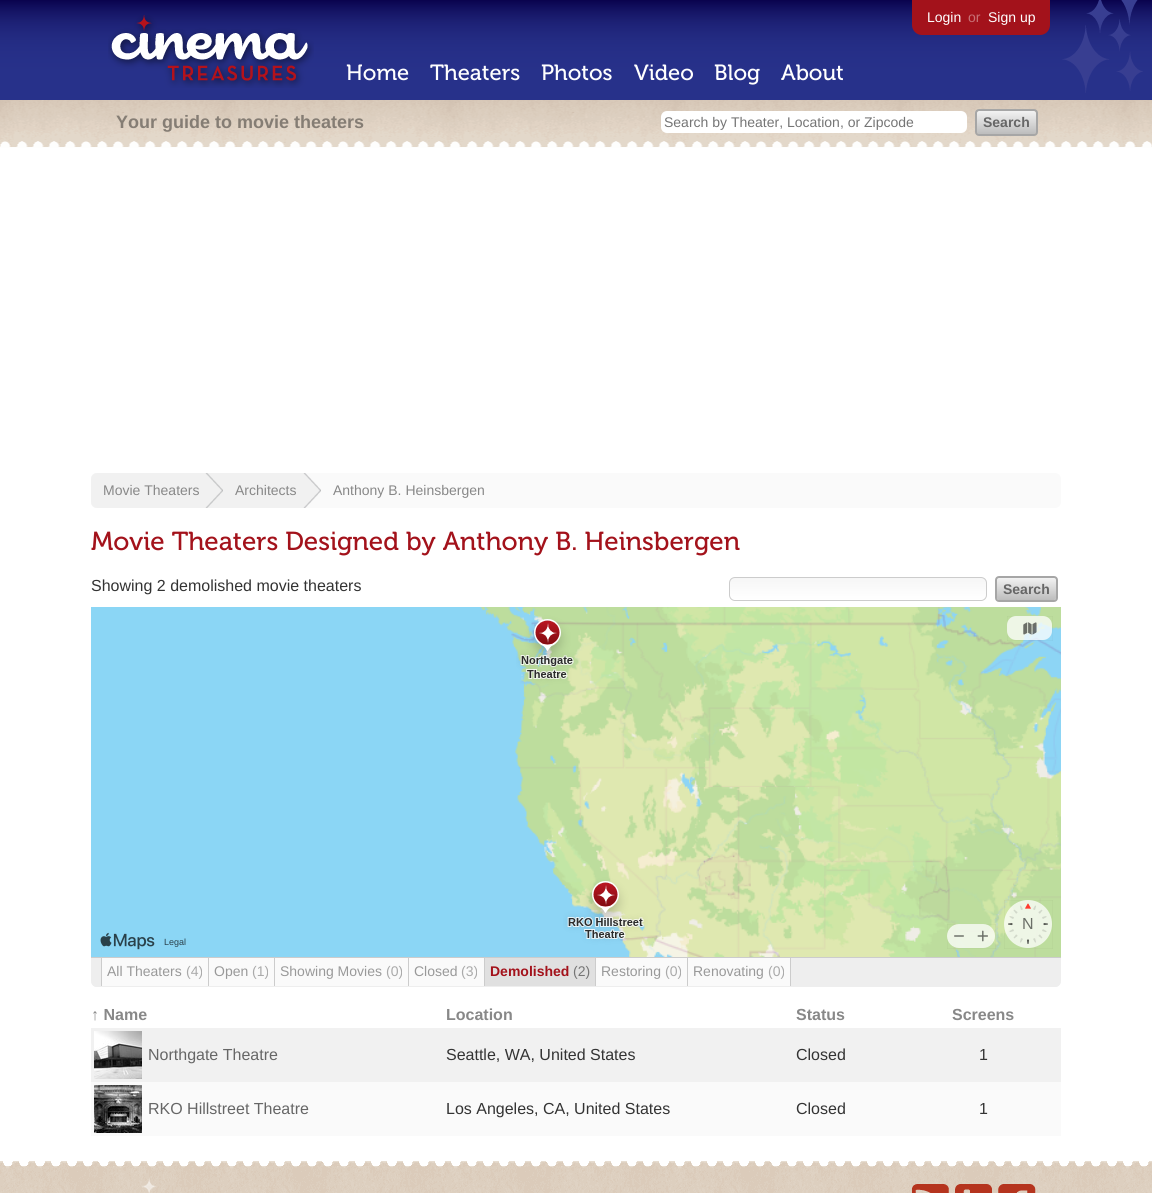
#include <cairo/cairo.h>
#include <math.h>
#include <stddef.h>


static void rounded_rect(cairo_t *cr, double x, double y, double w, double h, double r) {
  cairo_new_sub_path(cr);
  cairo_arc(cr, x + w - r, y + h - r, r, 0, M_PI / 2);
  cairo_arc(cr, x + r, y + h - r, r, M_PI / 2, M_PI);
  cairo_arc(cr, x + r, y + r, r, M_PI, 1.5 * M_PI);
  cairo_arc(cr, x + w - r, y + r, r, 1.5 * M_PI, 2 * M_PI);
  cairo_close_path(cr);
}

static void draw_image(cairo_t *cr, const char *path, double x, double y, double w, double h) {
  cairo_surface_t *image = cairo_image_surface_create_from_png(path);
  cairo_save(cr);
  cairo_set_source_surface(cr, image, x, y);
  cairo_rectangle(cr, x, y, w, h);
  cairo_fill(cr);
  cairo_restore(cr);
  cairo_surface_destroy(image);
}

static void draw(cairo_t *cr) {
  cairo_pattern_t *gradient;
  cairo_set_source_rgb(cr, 1, 1, 1);
  cairo_paint(cr);
  draw_image(cr, "images/1.png", 0, 0, 1152, 100);
  draw_image(cr, "images/2.png", 108, 15, 206, 73);
  cairo_set_source_rgb(cr, 163 / 255.0, 18 / 255.0, 27 / 255.0);
  cairo_new_path(cr);
  cairo_move_to(cr, 912, 0);
  cairo_line_to(cr, 1050, 0);
  cairo_line_to(cr, 1050, 25);
  cairo_curve_to(cr, 1050, 30.5, 1045.5, 35, 1040, 35);
  cairo_line_to(cr, 922, 35);
  cairo_curve_to(cr, 916.5, 35, 912, 30.5, 912, 25);
  cairo_close_path(cr);
  cairo_fill(cr);
  draw_image(cr, "images/3.png", 1062, 0, 81, 93);
  draw_image(cr, "images/4.png", 0, 100, 1152, 48);
  cairo_set_source_rgb(cr, 1, 1, 1);
  rounded_rect(cr, 661, 111, 306, 22, 6);
  cairo_fill(cr);
  gradient = cairo_pattern_create_linear(1007, 111, 1007, 134);
  cairo_pattern_add_color_stop_rgba(gradient, 0, 242 / 255.0, 242 / 255.0, 242 / 255.0, 1);
  cairo_pattern_add_color_stop_rgba(gradient, 1, 189 / 255.0, 189 / 255.0, 189 / 255.0, 1);
  cairo_set_source(cr, gradient);
  cairo_pattern_destroy(gradient);
  rounded_rect(cr, 977, 111, 59, 23, 2);
  cairo_fill(cr);
  rounded_rect(cr, 976, 110, 61, 25, 3);
  cairo_set_source_rgb(cr, 166 / 255.0, 166 / 255.0, 166 / 255.0);
  cairo_stroke(cr);
  cairo_set_source_rgb(cr, 250 / 255.0, 250 / 255.0, 250 / 255.0);
  rounded_rect(cr, 91, 473, 970, 35, 6);
  cairo_fill(cr);
  cairo_set_source_rgb(cr, 241 / 255.0, 241 / 255.0, 241 / 255.0);
  cairo_new_path(cr);
  cairo_move_to(cr, 97, 473);
  cairo_line_to(cr, 223, 473);
  cairo_line_to(cr, 223, 508);
  cairo_line_to(cr, 97, 508);
  cairo_curve_to(cr, 93.5, 508, 91, 505.5, 91, 502);
  cairo_line_to(cr, 91, 479);
  cairo_curve_to(cr, 91, 475.5, 93.5, 473, 97, 473);
  cairo_close_path(cr);
  cairo_fill(cr);
  draw_image(cr, "images/5.png", 205, 473, 18, 35);
  cairo_rectangle(cr, 223, 473, 98, 35);
  cairo_fill(cr);
  draw_image(cr, "images/6.png", 303, 473, 18, 35);
  cairo_save(cr);
  rounded_rect(cr, 729, 577, 258, 24, 6);
  cairo_clip(cr);
  gradient = cairo_pattern_create_linear(858, 578, 858, 600);
  cairo_pattern_add_color_stop_rgba(gradient, 0, 246 / 255.0, 246 / 255.0, 246 / 255.0, 1);
  cairo_pattern_add_color_stop_rgba(gradient, 1, 1, 1, 1, 1);
  cairo_set_source(cr, gradient);
  cairo_pattern_destroy(gradient);
  cairo_rectangle(cr, 729, 578, 258, 22);
  cairo_fill(cr);
  cairo_restore(cr);
  rounded_rect(cr, 729.5, 577.5, 257, 23, 5.5);
  cairo_set_source_rgb(cr, 204 / 255.0, 204 / 255.0, 204 / 255.0);
  cairo_set_line_width(cr, 1);
  cairo_stroke(cr);
  gradient = cairo_pattern_create_linear(1027, 578, 1027, 600);
  cairo_pattern_add_color_stop_rgba(gradient, 0, 242 / 255.0, 242 / 255.0, 242 / 255.0, 1);
  cairo_pattern_add_color_stop_rgba(gradient, 1, 189 / 255.0, 189 / 255.0, 189 / 255.0, 1);
  cairo_set_source(cr, gradient);
  cairo_pattern_destroy(gradient);
  rounded_rect(cr, 997, 578, 59, 22, 2);
  cairo_fill(cr);
  rounded_rect(cr, 996, 577, 61, 24, 3);
  cairo_set_source_rgb(cr, 166 / 255.0, 166 / 255.0, 166 / 255.0);
  cairo_set_line_width(cr, 2);
  cairo_stroke(cr);
  draw_image(cr, "images/7.png", 91, 607, 389, 350);
  draw_image(cr, "images/8.png", 480, 607, 581, 350);
  cairo_rectangle(cr, 1007.25, 616.25, 45.5, 24.5);
  cairo_set_source_rgba(cr, 0, 0, 0, 0.05);
  cairo_set_line_width(cr, 0.5);
  cairo_stroke(cr);
  cairo_set_source_rgba(cr, 1, 1, 1, 0.75);
  rounded_rect(cr, 1007, 616, 45, 24, 9);
  cairo_fill(cr);
  draw_image(cr, "images/9.png", 1023, 622, 14, 13);
  cairo_rectangle(cr, 947.25, 924.25, 48.5, 24.5);
  cairo_set_source_rgba(cr, 0, 0, 0, 0.05);
  cairo_stroke(cr);
  cairo_set_source_rgba(cr, 1, 1, 1, 0.75);
  rounded_rect(cr, 947, 924, 48, 24, 12);
  cairo_fill(cr);
  draw_image(cr, "images/10.png", 954, 935, 10, 2);
  draw_image(cr, "images/11.png", 977, 930, 11, 12);
  cairo_rectangle(cr, 1004.25, 900.25, 48.5, 48.5);
  cairo_set_source_rgba(cr, 0, 0, 0, 0.05);
  cairo_stroke(cr);
  cairo_set_source_rgba(cr, 1, 1, 1, 0.75);
  cairo_arc(cr, 1028, 924, 24, 0, 2 * M_PI);
  cairo_fill(cr);
  draw_image(cr, "images/12.png", 1008, 903, 40, 41);
  draw_image(cr, "images/13.png", 100, 932, 55, 18);
  cairo_set_source_rgb(cr, 238 / 255.0, 238 / 255.0, 238 / 255.0);
  cairo_new_path(cr);
  cairo_move_to(cr, 91, 957);
  cairo_line_to(cr, 1061, 957);
  cairo_line_to(cr, 1061, 981);
  cairo_curve_to(cr, 1061, 984.5, 1058.5, 987, 1055, 987);
  cairo_line_to(cr, 97, 987);
  cairo_curve_to(cr, 93.5, 987, 91, 984.5, 91, 981);
  cairo_close_path(cr);
  cairo_fill(cr);
  cairo_set_source_rgb(cr, 204 / 255.0, 204 / 255.0, 204 / 255.0);
  cairo_rectangle(cr, 91, 957, 970, 1);
  cairo_fill(cr);
  cairo_set_source_rgb(cr, 238 / 255.0, 238 / 255.0, 238 / 255.0);
  cairo_new_path(cr);
  cairo_move_to(cr, 97, 987);
  cairo_line_to(cr, 1055, 987);
  cairo_curve_to(cr, 1058, 987, 1061, 984, 1061, 981);
  cairo_curve_to(cr, 1061, 984, 1058, 986, 1055, 986);
  cairo_line_to(cr, 97, 986);
  cairo_curve_to(cr, 94, 986, 91, 984, 91, 981);
  cairo_curve_to(cr, 91, 984, 94, 987, 97, 987);
  cairo_close_path(cr);
  cairo_fill(cr);
  cairo_set_source_rgb(cr, 250 / 255.0, 250 / 255.0, 250 / 255.0);
  cairo_rectangle(cr, 102, 958, 106, 28);
  cairo_fill(cr);
  cairo_set_source_rgb(cr, 204 / 255.0, 204 / 255.0, 204 / 255.0);
  cairo_rectangle(cr, 208, 958, 1, 28);
  cairo_fill(cr);
  cairo_rectangle(cr, 101, 958, 1, 28);
  cairo_fill(cr);
  cairo_set_source_rgb(cr, 250 / 255.0, 250 / 255.0, 250 / 255.0);
  cairo_rectangle(cr, 209, 958, 65, 28);
  cairo_fill(cr);
  cairo_set_source_rgb(cr, 204 / 255.0, 204 / 255.0, 204 / 255.0);
  cairo_rectangle(cr, 274, 958, 1, 28);
  cairo_fill(cr);
  cairo_set_source_rgb(cr, 250 / 255.0, 250 / 255.0, 250 / 255.0);
  cairo_rectangle(cr, 275, 958, 133, 28);
  cairo_fill(cr);
  cairo_set_source_rgb(cr, 204 / 255.0, 204 / 255.0, 204 / 255.0);
  cairo_rectangle(cr, 408, 958, 1, 28);
  cairo_fill(cr);
  cairo_set_source_rgb(cr, 250 / 255.0, 250 / 255.0, 250 / 255.0);
  cairo_rectangle(cr, 409, 958, 75, 28);
  cairo_fill(cr);
  cairo_set_source_rgb(cr, 204 / 255.0, 204 / 255.0, 204 / 255.0);
  cairo_rectangle(cr, 484, 958, 1, 28);
  cairo_fill(cr);
  cairo_set_source_rgb(cr, 224 / 255.0, 224 / 255.0, 224 / 255.0);
  cairo_rectangle(cr, 485, 958, 110, 28);
  cairo_fill(cr);
  cairo_set_source_rgb(cr, 204 / 255.0, 204 / 255.0, 204 / 255.0);
  cairo_rectangle(cr, 595, 958, 1, 28);
  cairo_fill(cr);
  cairo_set_source_rgb(cr, 250 / 255.0, 250 / 255.0, 250 / 255.0);
  cairo_rectangle(cr, 596, 958, 91, 28);
  cairo_fill(cr);
  cairo_set_source_rgb(cr, 204 / 255.0, 204 / 255.0, 204 / 255.0);
  cairo_rectangle(cr, 687, 958, 1, 28);
  cairo_fill(cr);
  cairo_set_source_rgb(cr, 250 / 255.0, 250 / 255.0, 250 / 255.0);
  cairo_rectangle(cr, 688, 958, 102, 28);
  cairo_fill(cr);
  cairo_set_source_rgb(cr, 204 / 255.0, 204 / 255.0, 204 / 255.0);
  cairo_rectangle(cr, 790, 958, 1, 28);
  cairo_fill(cr);
  cairo_set_source_rgb(cr, 241 / 255.0, 241 / 255.0, 241 / 255.0);
  cairo_rectangle(cr, 91, 1028, 970, 54);
  cairo_fill(cr);
  draw_image(cr, "images/14.png", 94, 1031, 48, 48);
  cairo_set_source_rgb(cr, 250 / 255.0, 250 / 255.0, 250 / 255.0);
  cairo_rectangle(cr, 91, 1082, 970, 54);
  cairo_fill(cr);
  draw_image(cr, "images/15.png", 94, 1085, 48, 48);
  draw_image(cr, "images/16.png", 0, 1161, 1152, 32);
  draw_image(cr, "images/17.png", 142, 1178, 15, 15);
  draw_image(cr, "images/18.png", 912, 1184, 37, 9);
  draw_image(cr, "images/19.png", 955, 1184, 37, 9);
  draw_image(cr, "images/20.png", 998, 1184, 38, 9);
  cairo_select_font_face(cr, "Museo", CAIRO_FONT_SLANT_NORMAL, CAIRO_FONT_WEIGHT_NORMAL);
  cairo_set_font_size(cr, 22);
  cairo_set_source_rgb(cr, 1, 1, 1);
  cairo_move_to(cr, 346, 80);
  cairo_show_text(cr, "Home");
  cairo_move_to(cr, 430, 80);
  cairo_show_text(cr, "Theaters");
  cairo_move_to(cr, 541, 80);
  cairo_show_text(cr, "Photos");
  cairo_move_to(cr, 634, 80);
  cairo_show_text(cr, "Video");
  cairo_move_to(cr, 714, 80);
  cairo_show_text(cr, "Blog");
  cairo_move_to(cr, 781, 80);
  cairo_show_text(cr, "About");
  cairo_select_font_face(cr, "Liberation Sans", CAIRO_FONT_SLANT_NORMAL, CAIRO_FONT_WEIGHT_NORMAL);
  cairo_set_font_size(cr, 14);
  cairo_move_to(cr, 927, 22);
  cairo_show_text(cr, "Login");
  cairo_set_source_rgb(cr, 200 / 255.0, 113 / 255.0, 118 / 255.0);
  cairo_move_to(cr, 968, 22);
  cairo_show_text(cr, "or");
  cairo_set_source_rgb(cr, 1, 1, 1);
  cairo_move_to(cr, 988, 22);
  cairo_show_text(cr, "Sign up");
  cairo_select_font_face(cr, "Liberation Sans", CAIRO_FONT_SLANT_NORMAL, CAIRO_FONT_WEIGHT_BOLD);
  cairo_set_font_size(cr, 18);
  cairo_set_source_rgb(cr, 133 / 255.0, 125 / 255.0, 116 / 255.0);
  cairo_move_to(cr, 116, 128);
  cairo_show_text(cr, "Your guide to movie theaters");
  cairo_select_font_face(cr, "Liberation Sans", CAIRO_FONT_SLANT_NORMAL, CAIRO_FONT_WEIGHT_NORMAL);
  cairo_set_font_size(cr, 14);
  cairo_set_source_rgb(cr, 117 / 255.0, 117 / 255.0, 117 / 255.0);
  cairo_move_to(cr, 664, 127);
  cairo_show_text(cr, "Search by Theater, Location, or Zipcode");
  cairo_select_font_face(cr, "Liberation Sans", CAIRO_FONT_SLANT_NORMAL, CAIRO_FONT_WEIGHT_BOLD);
  cairo_set_source_rgb(cr, 102 / 255.0, 102 / 255.0, 102 / 255.0);
  cairo_move_to(cr, 983, 127);
  cairo_show_text(cr, "Search");
  cairo_select_font_face(cr, "Liberation Sans", CAIRO_FONT_SLANT_NORMAL, CAIRO_FONT_WEIGHT_NORMAL);
  cairo_set_source_rgb(cr, 136 / 255.0, 136 / 255.0, 136 / 255.0);
  cairo_move_to(cr, 103, 495);
  cairo_show_text(cr, "Movie Theaters");
  cairo_move_to(cr, 235, 495);
  cairo_show_text(cr, "Architects");
  cairo_move_to(cr, 333, 495);
  cairo_show_text(cr, "Anthony B. Heinsbergen");
  cairo_select_font_face(cr, "Museo", CAIRO_FONT_SLANT_NORMAL, CAIRO_FONT_WEIGHT_NORMAL);
  cairo_set_font_size(cr, 26);
  cairo_set_source_rgb(cr, 163 / 255.0, 18 / 255.0, 27 / 255.0);
  cairo_move_to(cr, 91, 550);
  cairo_show_text(cr, "Movie Theaters Designed by Anthony B. Heinsbergen");
  cairo_select_font_face(cr, "Liberation Sans", CAIRO_FONT_SLANT_NORMAL, CAIRO_FONT_WEIGHT_NORMAL);
  cairo_set_font_size(cr, 16);
  cairo_set_source_rgb(cr, 51 / 255.0, 51 / 255.0, 51 / 255.0);
  cairo_move_to(cr, 91, 591);
  cairo_show_text(cr, "Showing 2 demolished movie theaters");
  cairo_select_font_face(cr, "Liberation Sans", CAIRO_FONT_SLANT_NORMAL, CAIRO_FONT_WEIGHT_BOLD);
  cairo_set_font_size(cr, 14);
  cairo_set_source_rgb(cr, 102 / 255.0, 102 / 255.0, 102 / 255.0);
  cairo_move_to(cr, 1003, 594);
  cairo_show_text(cr, "Search");
  cairo_select_font_face(cr, "Liberation Sans", CAIRO_FONT_SLANT_NORMAL, CAIRO_FONT_WEIGHT_NORMAL);
  cairo_set_font_size(cr, 16);
  cairo_set_source_rgb(cr, 107 / 255.0, 111 / 255.0, 104 / 255.0);
  cairo_move_to(cr, 1022, 929);
  cairo_show_text(cr, "N");
  cairo_set_font_size(cr, 9);
  cairo_set_source_rgb(cr, 42 / 255.0, 64 / 255.0, 74 / 255.0);
  cairo_move_to(cr, 164, 945);
  cairo_show_text(cr, "Legal");
  cairo_set_font_size(cr, 14);
  cairo_set_source_rgb(cr, 153 / 255.0, 153 / 255.0, 153 / 255.0);
  cairo_move_to(cr, 107, 976);
  cairo_show_text(cr, "All Theaters");
  cairo_set_source_rgb(cr, 170 / 255.0, 170 / 255.0, 170 / 255.0);
  cairo_move_to(cr, 186, 976);
  cairo_show_text(cr, "(4)");
  cairo_set_source_rgb(cr, 153 / 255.0, 153 / 255.0, 153 / 255.0);
  cairo_move_to(cr, 214, 976);
  cairo_show_text(cr, "Open");
  cairo_set_source_rgb(cr, 170 / 255.0, 170 / 255.0, 170 / 255.0);
  cairo_move_to(cr, 252, 976);
  cairo_show_text(cr, "(1)");
  cairo_set_source_rgb(cr, 153 / 255.0, 153 / 255.0, 153 / 255.0);
  cairo_move_to(cr, 280, 976);
  cairo_show_text(cr, "Showing Movies");
  cairo_set_source_rgb(cr, 170 / 255.0, 170 / 255.0, 170 / 255.0);
  cairo_move_to(cr, 386, 976);
  cairo_show_text(cr, "(0)");
  cairo_set_source_rgb(cr, 153 / 255.0, 153 / 255.0, 153 / 255.0);
  cairo_move_to(cr, 414, 976);
  cairo_show_text(cr, "Closed");
  cairo_set_source_rgb(cr, 170 / 255.0, 170 / 255.0, 170 / 255.0);
  cairo_move_to(cr, 461, 976);
  cairo_show_text(cr, "(3)");
  cairo_select_font_face(cr, "Liberation Sans", CAIRO_FONT_SLANT_NORMAL, CAIRO_FONT_WEIGHT_BOLD);
  cairo_set_source_rgb(cr, 163 / 255.0, 18 / 255.0, 27 / 255.0);
  cairo_move_to(cr, 490, 976);
  cairo_show_text(cr, "Demolished");
  cairo_select_font_face(cr, "Liberation Sans", CAIRO_FONT_SLANT_NORMAL, CAIRO_FONT_WEIGHT_NORMAL);
  cairo_set_source_rgb(cr, 117 / 255.0, 117 / 255.0, 117 / 255.0);
  cairo_move_to(cr, 573, 976);
  cairo_show_text(cr, "(2)");
  cairo_set_source_rgb(cr, 153 / 255.0, 153 / 255.0, 153 / 255.0);
  cairo_move_to(cr, 601, 976);
  cairo_show_text(cr, "Restoring");
  cairo_set_source_rgb(cr, 170 / 255.0, 170 / 255.0, 170 / 255.0);
  cairo_move_to(cr, 665, 976);
  cairo_show_text(cr, "(0)");
  cairo_set_source_rgb(cr, 153 / 255.0, 153 / 255.0, 153 / 255.0);
  cairo_move_to(cr, 693, 976);
  cairo_show_text(cr, "Renovating");
  cairo_set_source_rgb(cr, 170 / 255.0, 170 / 255.0, 170 / 255.0);
  cairo_move_to(cr, 768, 976);
  cairo_show_text(cr, "(0)");
  cairo_select_font_face(cr, "Liberation Sans", CAIRO_FONT_SLANT_NORMAL, CAIRO_FONT_WEIGHT_BOLD);
  cairo_set_font_size(cr, 16);
  cairo_set_source_rgb(cr, 136 / 255.0, 136 / 255.0, 136 / 255.0);
  cairo_move_to(cr, 91, 1020);
  cairo_show_text(cr, "↑ Name");
  cairo_move_to(cr, 446, 1020);
  cairo_show_text(cr, "Location");
  cairo_move_to(cr, 796, 1020);
  cairo_show_text(cr, "Status");
  cairo_move_to(cr, 952, 1020);
  cairo_show_text(cr, "Screens");
  cairo_select_font_face(cr, "Liberation Sans", CAIRO_FONT_SLANT_NORMAL, CAIRO_FONT_WEIGHT_NORMAL);
  cairo_set_source_rgb(cr, 102 / 255.0, 102 / 255.0, 102 / 255.0);
  cairo_move_to(cr, 148, 1060);
  cairo_show_text(cr, "Northgate Theatre");
  cairo_set_source_rgb(cr, 51 / 255.0, 51 / 255.0, 51 / 255.0);
  cairo_move_to(cr, 446, 1060);
  cairo_show_text(cr, "Seattle, WA, United States");
  cairo_move_to(cr, 796, 1060);
  cairo_show_text(cr, "Closed");
  cairo_move_to(cr, 979, 1060);
  cairo_show_text(cr, "1");
  cairo_set_source_rgb(cr, 102 / 255.0, 102 / 255.0, 102 / 255.0);
  cairo_move_to(cr, 148, 1114);
  cairo_show_text(cr, "RKO Hillstreet Theatre");
  cairo_set_source_rgb(cr, 51 / 255.0, 51 / 255.0, 51 / 255.0);
  cairo_move_to(cr, 446, 1114);
  cairo_show_text(cr, "Los Angeles, CA, United States");
  cairo_move_to(cr, 796, 1114);
  cairo_show_text(cr, "Closed");
  cairo_move_to(cr, 979, 1114);
  cairo_show_text(cr, "1");
}

int main(void) {
  cairo_surface_t *surface = cairo_image_surface_create(CAIRO_FORMAT_RGB24, 1152, 1193);
  cairo_t *cr = cairo_create(surface);
  cairo_font_options_t *options = cairo_font_options_create();
  cairo_font_options_set_hint_metrics(options, CAIRO_HINT_METRICS_OFF);
  cairo_font_options_set_hint_style(options, CAIRO_HINT_STYLE_NONE);
  cairo_set_font_options(cr, options);
  cairo_set_miter_limit(cr, 4);
  draw(cr);
  cairo_surface_write_to_png(surface, "out.png");
  cairo_font_options_destroy(options);
  cairo_destroy(cr);
  cairo_surface_destroy(surface);
  return 0;
}
